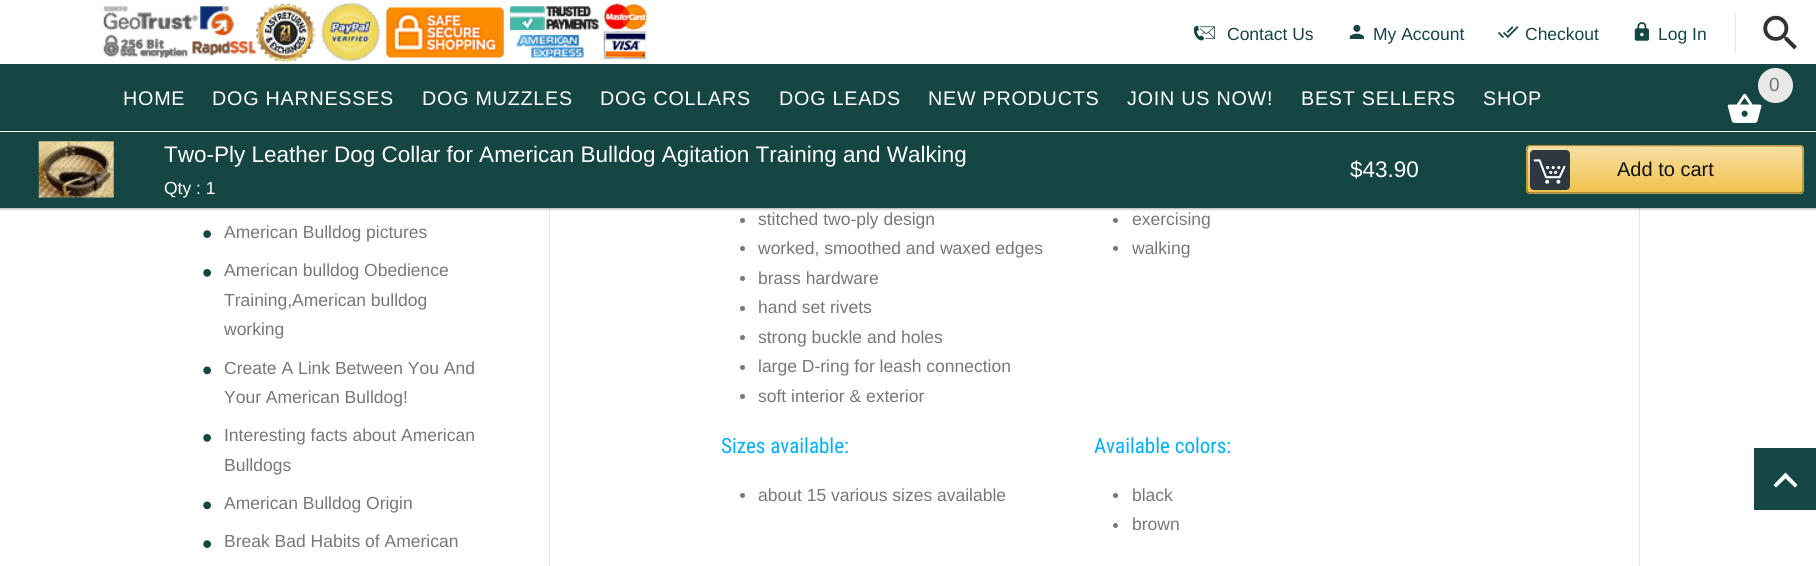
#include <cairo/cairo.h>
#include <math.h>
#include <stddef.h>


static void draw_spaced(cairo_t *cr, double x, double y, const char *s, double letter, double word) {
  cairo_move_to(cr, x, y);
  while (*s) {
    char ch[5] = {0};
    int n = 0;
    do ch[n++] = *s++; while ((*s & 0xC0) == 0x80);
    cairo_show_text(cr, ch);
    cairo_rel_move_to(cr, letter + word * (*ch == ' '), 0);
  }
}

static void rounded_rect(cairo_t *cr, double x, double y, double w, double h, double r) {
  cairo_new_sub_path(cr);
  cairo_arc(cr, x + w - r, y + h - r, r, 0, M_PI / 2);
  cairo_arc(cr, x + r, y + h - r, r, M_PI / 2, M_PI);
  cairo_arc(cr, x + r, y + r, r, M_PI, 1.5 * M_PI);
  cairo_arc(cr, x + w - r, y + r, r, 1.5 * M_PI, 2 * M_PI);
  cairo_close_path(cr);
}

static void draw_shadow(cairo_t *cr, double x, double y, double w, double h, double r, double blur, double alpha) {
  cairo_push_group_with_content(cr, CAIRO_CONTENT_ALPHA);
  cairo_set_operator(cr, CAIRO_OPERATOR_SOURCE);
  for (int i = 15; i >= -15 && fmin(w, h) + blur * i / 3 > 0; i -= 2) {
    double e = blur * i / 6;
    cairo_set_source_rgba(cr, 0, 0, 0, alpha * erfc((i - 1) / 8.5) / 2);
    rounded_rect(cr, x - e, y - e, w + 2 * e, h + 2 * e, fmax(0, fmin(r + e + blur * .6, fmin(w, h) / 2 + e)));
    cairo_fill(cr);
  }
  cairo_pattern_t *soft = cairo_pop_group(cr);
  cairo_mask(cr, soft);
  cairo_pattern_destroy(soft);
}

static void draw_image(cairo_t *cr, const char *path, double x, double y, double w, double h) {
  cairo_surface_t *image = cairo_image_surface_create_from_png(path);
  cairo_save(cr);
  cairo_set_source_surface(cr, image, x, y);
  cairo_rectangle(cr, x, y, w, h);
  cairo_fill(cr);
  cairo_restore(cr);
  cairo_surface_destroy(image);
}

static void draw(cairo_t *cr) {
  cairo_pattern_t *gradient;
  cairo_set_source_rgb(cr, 1, 1, 1);
  cairo_paint(cr);
  cairo_set_source_rgb(cr, 229 / 255.0, 229 / 255.0, 229 / 255.0);
  cairo_rectangle(cr, 1639, 208, 1, 358);
  cairo_fill(cr);
  cairo_rectangle(cr, 549, 208, 1, 358);
  cairo_fill(cr);
  cairo_set_source_rgb(cr, 0, 0, 0);
  draw_shadow(cr, 0, 1, 1816, 208, 0, 1, 0.24);
  draw_shadow(cr, 0, 1, 1816, 208, 0, 2, 0.12);
  cairo_set_source_rgb(cr, 22 / 255.0, 70 / 255.0, 67 / 255.0);
  cairo_rectangle(cr, 0, 64, 1816, 144);
  cairo_fill(cr);
  cairo_set_source_rgb(cr, 1, 1, 1);
  cairo_rectangle(cr, 0, 0, 1816, 64);
  cairo_fill(cr);
  draw_image(cr, "images/1.png", 103, 2, 544, 60);
  cairo_set_source_rgb(cr, 229 / 255.0, 229 / 255.0, 229 / 255.0);
  cairo_rectangle(cr, 1735, 13, 1, 40);
  cairo_fill(cr);
  draw_image(cr, "images/2.png", 1194, 25, 21, 16);
  draw_image(cr, "images/3.png", 1349, 24, 15, 15);
  draw_image(cr, "images/4.png", 1498, 26, 21, 12);
  draw_image(cr, "images/5.png", 1634, 22, 15, 19);
  draw_image(cr, "images/6.png", 1763, 15, 34, 35);
  cairo_set_source_rgb(cr, 232 / 255.0, 232 / 255.0, 232 / 255.0);
  cairo_arc(cr, 1775.5, 85.5, 17.5, 0, 2 * M_PI);
  cairo_fill(cr);
  draw_image(cr, "images/7.png", 1727, 93, 35, 30);
  cairo_set_source_rgb(cr, 1, 1, 1);
  cairo_rectangle(cr, 0, 131, 1816, 1);
  cairo_fill(cr);
  draw_image(cr, "images/8.png", 38, 141, 76, 57);
  cairo_save(cr);
  rounded_rect(cr, 1526, 145, 278, 49, 4);
  cairo_clip(cr);
  gradient = cairo_pattern_create_linear(1665, 100, 1665, 146);
  cairo_pattern_add_color_stop_rgba(gradient, 0, 247 / 255.0, 223 / 255.0, 165 / 255.0, 1);
  cairo_pattern_add_color_stop_rgba(gradient, 1, 240 / 255.0, 193 / 255.0, 75 / 255.0, 1);
  cairo_set_source(cr, gradient);
  cairo_pattern_destroy(gradient);
  cairo_rectangle(cr, 1526, 145, 278, 1);
  cairo_fill(cr);
  gradient = cairo_pattern_create_linear(1665, 146, 1665, 193);
  cairo_pattern_add_color_stop_rgba(gradient, 0, 247 / 255.0, 223 / 255.0, 165 / 255.0, 1);
  cairo_pattern_add_color_stop_rgba(gradient, 1, 240 / 255.0, 193 / 255.0, 75 / 255.0, 1);
  cairo_set_source(cr, gradient);
  cairo_pattern_destroy(gradient);
  cairo_rectangle(cr, 1526, 146, 278, 47);
  cairo_fill(cr);
  gradient = cairo_pattern_create_linear(1665, 193, 1665, 239);
  cairo_pattern_add_color_stop_rgba(gradient, 0, 247 / 255.0, 223 / 255.0, 165 / 255.0, 1);
  cairo_pattern_add_color_stop_rgba(gradient, 1, 240 / 255.0, 193 / 255.0, 75 / 255.0, 1);
  cairo_set_source(cr, gradient);
  cairo_pattern_destroy(gradient);
  cairo_rectangle(cr, 1526, 193, 278, 1);
  cairo_fill(cr);
  cairo_restore(cr);
  cairo_new_path(cr);
  cairo_move_to(cr, 1528, 146.5);
  cairo_line_to(cr, 1530, 145.5);
  cairo_line_to(cr, 1801, 146);
  cairo_line_to(cr, 1802, 146.5);
  cairo_set_source_rgb(cr, 168 / 255.0, 135 / 255.0, 52 / 255.0);
  cairo_set_line_width(cr, 1.2);
  cairo_stroke(cr);
  cairo_new_path(cr);
  cairo_move_to(cr, 1802, 146.5);
  cairo_line_to(cr, 1803, 149);
  cairo_line_to(cr, 1803, 190);
  cairo_line_to(cr, 1802, 192);
  cairo_set_source_rgb(cr, 156 / 255.0, 126 / 255.0, 49 / 255.0);
  cairo_stroke(cr);
  cairo_new_path(cr);
  cairo_move_to(cr, 1802, 192);
  cairo_line_to(cr, 1800, 193);
  cairo_line_to(cr, 1529, 193);
  cairo_line_to(cr, 1528, 192);
  cairo_set_source_rgb(cr, 132 / 255.0, 106 / 255.0, 41 / 255.0);
  cairo_stroke(cr);
  cairo_new_path(cr);
  cairo_move_to(cr, 1528, 192);
  cairo_line_to(cr, 1527, 190);
  cairo_line_to(cr, 1527, 149);
  cairo_line_to(cr, 1528, 146.5);
  cairo_set_source_rgb(cr, 156 / 255.0, 126 / 255.0, 49 / 255.0);
  cairo_stroke(cr);
  draw_image(cr, "images/9.png", 1530, 150, 40, 40);
  draw_image(cr, "images/10.png", 203, 230, 8, 8);
  draw_image(cr, "images/11.png", 203, 269, 8, 8);
  draw_image(cr, "images/12.png", 203, 366, 8, 9);
  draw_image(cr, "images/11.png", 203, 434, 8, 8);
  draw_image(cr, "images/12.png", 203, 501, 8, 9);
  draw_image(cr, "images/10.png", 203, 540, 8, 8);
  cairo_set_source_rgb(cr, 119 / 255.0, 119 / 255.0, 119 / 255.0);
  cairo_arc(cr, 742.5, 220.5, 2.5, 0, 2 * M_PI);
  cairo_fill(cr);
  cairo_arc(cr, 742.5, 248.5, 2.5, 0, 2 * M_PI);
  cairo_fill(cr);
  cairo_arc(cr, 742.5, 278.5, 2.5, 0, 2 * M_PI);
  cairo_fill(cr);
  cairo_arc(cr, 742.5, 308.5, 2.5, 0, 2 * M_PI);
  cairo_fill(cr);
  cairo_arc(cr, 742.5, 337.5, 2.5, 0, 2 * M_PI);
  cairo_fill(cr);
  cairo_arc(cr, 742.5, 367.5, 2.5, 0, 2 * M_PI);
  cairo_fill(cr);
  cairo_arc(cr, 742.5, 396.5, 2.5, 0, 2 * M_PI);
  cairo_fill(cr);
  cairo_arc(cr, 1115.5, 220.5, 2.5, 0, 2 * M_PI);
  cairo_fill(cr);
  cairo_arc(cr, 1115.5, 248.5, 2.5, 0, 2 * M_PI);
  cairo_fill(cr);
  cairo_arc(cr, 742.5, 495.5, 2.5, 0, 2 * M_PI);
  cairo_fill(cr);
  cairo_arc(cr, 1115.5, 495.5, 2.5, 0, 2 * M_PI);
  cairo_fill(cr);
  cairo_arc(cr, 1115.5, 525.5, 2.5, 0, 2 * M_PI);
  cairo_fill(cr);
  cairo_set_source_rgb(cr, 22 / 255.0, 70 / 255.0, 67 / 255.0);
  cairo_rectangle(cr, 1754, 448, 62, 62);
  cairo_fill(cr);
  cairo_set_source_rgb(cr, 1, 1, 1);
  cairo_new_path(cr);
  cairo_move_to(cr, 1776, 487.5);
  cairo_line_to(cr, 1773.5, 485);
  cairo_line_to(cr, 1785.5, 472.5);
  cairo_line_to(cr, 1797.5, 485);
  cairo_line_to(cr, 1795, 487.5);
  cairo_line_to(cr, 1785.5, 478.5);
  cairo_close_path(cr);
  cairo_fill(cr);
  cairo_select_font_face(cr, "Liberation Sans", CAIRO_FONT_SLANT_NORMAL, CAIRO_FONT_WEIGHT_NORMAL);
  cairo_set_font_size(cr, 17.5);
  cairo_set_source_rgb(cr, 22 / 255.0, 70 / 255.0, 67 / 255.0);
  cairo_move_to(cr, 1227, 40);
  cairo_show_text(cr, "Contact Us");
  cairo_move_to(cr, 1373, 40);
  cairo_show_text(cr, "My Account");
  cairo_move_to(cr, 1525, 40);
  cairo_show_text(cr, "Checkout");
  cairo_move_to(cr, 1658, 40);
  cairo_show_text(cr, "Log In");
  cairo_set_font_size(cr, 19);
  cairo_set_source_rgb(cr, 119 / 255.0, 119 / 255.0, 119 / 255.0);
  cairo_move_to(cr, 1769, 91);
  cairo_show_text(cr, "0");
  cairo_set_font_size(cr, 19.75);
  cairo_set_source_rgb(cr, 1, 1, 1);
  draw_spaced(cr, 123, 105, "HOME", 0.75, 0);
  draw_spaced(cr, 212, 105, "DOG HARNESSES", 0.75, 0);
  draw_spaced(cr, 422, 105, "DOG MUZZLES", 0.75, 0);
  draw_spaced(cr, 600, 105, "DOG COLLARS", 0.75, 0);
  draw_spaced(cr, 779, 105, "DOG LEADS", 0.75, 0);
  draw_spaced(cr, 928, 105, "NEW PRODUCTS", 0.75, 0);
  draw_spaced(cr, 1127, 105, "JOIN US NOW!", 0.75, 0);
  draw_spaced(cr, 1301, 105, "BEST SELLERS", 0.75, 0);
  draw_spaced(cr, 1483, 105, "SHOP", 0.75, 0);
  cairo_set_font_size(cr, 22.5);
  cairo_move_to(cr, 164, 162);
  cairo_show_text(cr, "Two-Ply Leather Dog Collar for American Bulldog Agitation Training and Walking");
  cairo_set_font_size(cr, 17.5);
  cairo_move_to(cr, 164, 194);
  cairo_show_text(cr, "Qty : 1");
  cairo_set_font_size(cr, 22.5);
  cairo_move_to(cr, 1350, 177);
  cairo_show_text(cr, "$43.90");
  cairo_set_font_size(cr, 20);
  cairo_set_source_rgb(cr, 17 / 255.0, 17 / 255.0, 17 / 255.0);
  cairo_move_to(cr, 1617, 176);
  cairo_show_text(cr, "Add to cart");
  cairo_set_font_size(cr, 17.5);
  cairo_set_source_rgb(cr, 119 / 255.0, 119 / 255.0, 119 / 255.0);
  cairo_move_to(cr, 224, 238);
  cairo_show_text(cr, "American Bulldog pictures");
  cairo_move_to(cr, 224, 276);
  cairo_show_text(cr, "American bulldog Obedience");
  cairo_move_to(cr, 224, 306);
  cairo_show_text(cr, "Training,American bulldog");
  cairo_move_to(cr, 224, 335);
  cairo_show_text(cr, "working");
  cairo_move_to(cr, 224, 374);
  cairo_show_text(cr, "Create A Link Between You And");
  cairo_move_to(cr, 224, 403);
  cairo_show_text(cr, "Your American Bulldog!");
  cairo_move_to(cr, 224, 441);
  cairo_show_text(cr, "Interesting facts about American");
  cairo_move_to(cr, 224, 471);
  cairo_show_text(cr, "Bulldogs");
  cairo_move_to(cr, 224, 509);
  cairo_show_text(cr, "American Bulldog Origin");
  cairo_move_to(cr, 224, 547);
  cairo_show_text(cr, "Break Bad Habits of American");
  cairo_move_to(cr, 758, 225);
  cairo_show_text(cr, "stitched two-ply design");
  cairo_move_to(cr, 758, 254);
  cairo_show_text(cr, "worked, smoothed and waxed edges");
  cairo_move_to(cr, 758, 284);
  cairo_show_text(cr, "brass hardware");
  cairo_move_to(cr, 758, 313);
  cairo_show_text(cr, "hand set rivets");
  cairo_move_to(cr, 758, 343);
  cairo_show_text(cr, "strong buckle and holes");
  cairo_move_to(cr, 758, 372);
  cairo_show_text(cr, "large D-ring for leash connection");
  cairo_move_to(cr, 758, 402);
  cairo_show_text(cr, "soft interior & exterior");
  cairo_move_to(cr, 1132, 225);
  cairo_show_text(cr, "exercising");
  cairo_move_to(cr, 1132, 254);
  cairo_show_text(cr, "walking");
  cairo_select_font_face(cr, "Roboto Condensed", CAIRO_FONT_SLANT_NORMAL, CAIRO_FONT_WEIGHT_NORMAL);
  cairo_set_font_size(cr, 21);
  cairo_set_source_rgb(cr, 0, 174 / 255.0, 1);
  cairo_move_to(cr, 721, 453);
  cairo_show_text(cr, "Sizes available:");
  cairo_select_font_face(cr, "Liberation Sans", CAIRO_FONT_SLANT_NORMAL, CAIRO_FONT_WEIGHT_NORMAL);
  cairo_set_font_size(cr, 17.5);
  cairo_set_source_rgb(cr, 119 / 255.0, 119 / 255.0, 119 / 255.0);
  cairo_move_to(cr, 758, 501);
  cairo_show_text(cr, "about 15 various sizes available");
  cairo_select_font_face(cr, "Roboto Condensed", CAIRO_FONT_SLANT_NORMAL, CAIRO_FONT_WEIGHT_NORMAL);
  cairo_set_font_size(cr, 21);
  cairo_set_source_rgb(cr, 0, 174 / 255.0, 1);
  cairo_move_to(cr, 1094, 453);
  cairo_show_text(cr, "Available colors:");
  cairo_select_font_face(cr, "Liberation Sans", CAIRO_FONT_SLANT_NORMAL, CAIRO_FONT_WEIGHT_NORMAL);
  cairo_set_font_size(cr, 17.5);
  cairo_set_source_rgb(cr, 119 / 255.0, 119 / 255.0, 119 / 255.0);
  cairo_move_to(cr, 1132, 501);
  cairo_show_text(cr, "black");
  cairo_move_to(cr, 1132, 530);
  cairo_show_text(cr, "brown");
}

int main(void) {
  cairo_surface_t *surface = cairo_image_surface_create(CAIRO_FORMAT_RGB24, 1816, 566);
  cairo_t *cr = cairo_create(surface);
  cairo_font_options_t *options = cairo_font_options_create();
  cairo_font_options_set_hint_metrics(options, CAIRO_HINT_METRICS_OFF);
  cairo_font_options_set_hint_style(options, CAIRO_HINT_STYLE_NONE);
  cairo_set_font_options(cr, options);
  cairo_set_miter_limit(cr, 4);
  draw(cr);
  cairo_surface_write_to_png(surface, "out.png");
  cairo_font_options_destroy(options);
  cairo_destroy(cr);
  cairo_surface_destroy(surface);
  return 0;
}
